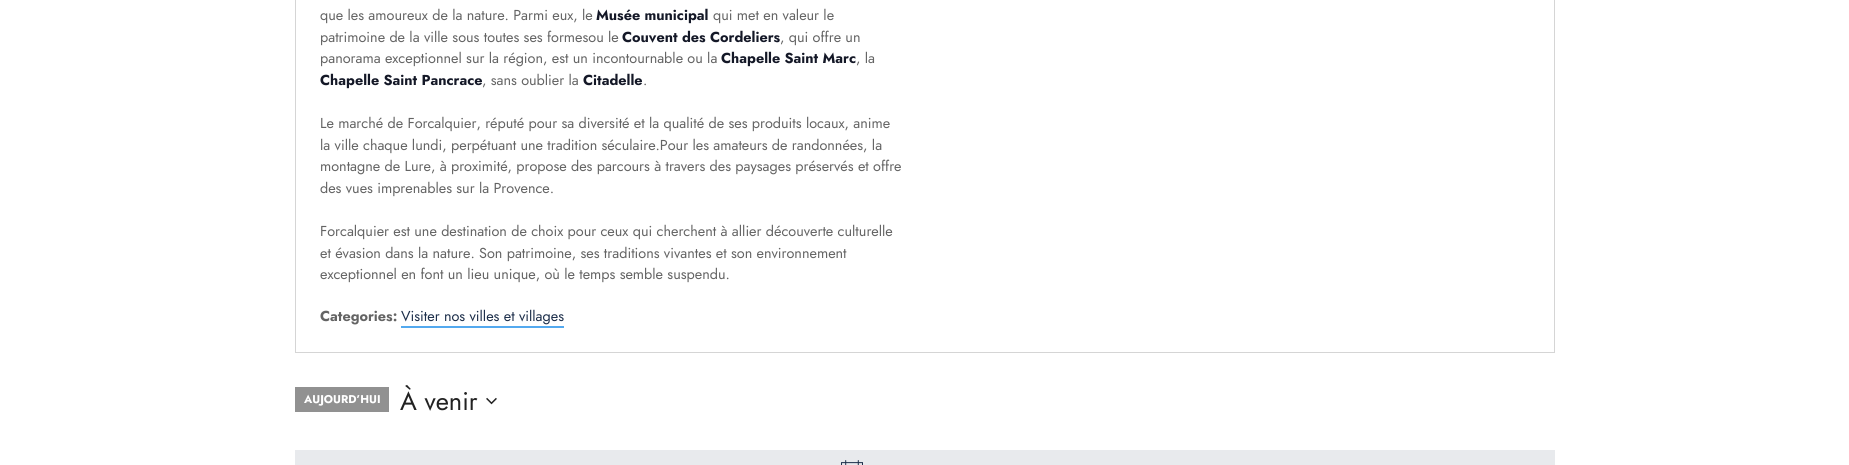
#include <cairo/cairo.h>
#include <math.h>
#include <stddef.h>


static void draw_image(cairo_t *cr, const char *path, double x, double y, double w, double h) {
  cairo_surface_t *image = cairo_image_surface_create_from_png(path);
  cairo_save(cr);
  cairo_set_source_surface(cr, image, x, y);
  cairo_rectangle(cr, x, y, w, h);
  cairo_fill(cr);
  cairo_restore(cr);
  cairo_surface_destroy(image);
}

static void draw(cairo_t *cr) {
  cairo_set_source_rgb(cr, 1, 1, 1);
  cairo_paint(cr);
  cairo_rectangle(cr, 295.5, -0.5, 1259, 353);
  cairo_set_source_rgb(cr, 213 / 255.0, 213 / 255.0, 213 / 255.0);
  cairo_set_line_width(cr, 1);
  cairo_stroke(cr);
  cairo_set_source_rgb(cr, 83 / 255.0, 169 / 255.0, 239 / 255.0);
  cairo_rectangle(cr, 401, 326, 163, 2);
  cairo_fill(cr);
  cairo_set_source_rgb(cr, 145 / 255.0, 145 / 255.0, 145 / 255.0);
  cairo_rectangle(cr, 295, 387, 94, 25);
  cairo_fill(cr);
  draw_image(cr, "images/1.png", 486, 397, 11, 8);
  cairo_set_source_rgb(cr, 232 / 255.0, 234 / 255.0, 237 / 255.0);
  cairo_rectangle(cr, 295, 450, 1260, 15);
  cairo_fill(cr);
  draw_image(cr, "images/2.png", 841, 460, 22, 5);
  cairo_select_font_face(cr, "Jost", CAIRO_FONT_SLANT_NORMAL, CAIRO_FONT_WEIGHT_NORMAL);
  cairo_set_font_size(cr, 14.4);
  cairo_set_source_rgb(cr, 100 / 255.0, 100 / 255.0, 100 / 255.0);
  cairo_move_to(cr, 320, 20);
  cairo_show_text(cr, "que les amoureux de la nature. Parmi eux, le");
  cairo_select_font_face(cr, "Jost", CAIRO_FONT_SLANT_NORMAL, CAIRO_FONT_WEIGHT_BOLD);
  cairo_set_source_rgb(cr, 20 / 255.0, 24 / 255.0, 39 / 255.0);
  cairo_move_to(cr, 596, 20);
  cairo_show_text(cr, "Musée municipal");
  cairo_select_font_face(cr, "Jost", CAIRO_FONT_SLANT_NORMAL, CAIRO_FONT_WEIGHT_NORMAL);
  cairo_set_source_rgb(cr, 100 / 255.0, 100 / 255.0, 100 / 255.0);
  cairo_move_to(cr, 713, 20);
  cairo_show_text(cr, "qui met en valeur le");
  cairo_move_to(cr, 320, 42);
  cairo_show_text(cr, "patrimoine de la ville sous toutes ses formesou le");
  cairo_select_font_face(cr, "Jost", CAIRO_FONT_SLANT_NORMAL, CAIRO_FONT_WEIGHT_BOLD);
  cairo_set_source_rgb(cr, 20 / 255.0, 24 / 255.0, 39 / 255.0);
  cairo_move_to(cr, 622, 42);
  cairo_show_text(cr, "Couvent des Cordeliers");
  cairo_select_font_face(cr, "Jost", CAIRO_FONT_SLANT_NORMAL, CAIRO_FONT_WEIGHT_NORMAL);
  cairo_set_source_rgb(cr, 100 / 255.0, 100 / 255.0, 100 / 255.0);
  cairo_move_to(cr, 780, 42);
  cairo_show_text(cr, ", qui offre un");
  cairo_move_to(cr, 320, 63);
  cairo_show_text(cr, "panorama exceptionnel sur la région, est un incontournable ou la");
  cairo_select_font_face(cr, "Jost", CAIRO_FONT_SLANT_NORMAL, CAIRO_FONT_WEIGHT_BOLD);
  cairo_set_source_rgb(cr, 20 / 255.0, 24 / 255.0, 39 / 255.0);
  cairo_move_to(cr, 721, 63);
  cairo_show_text(cr, "Chapelle Saint Marc");
  cairo_select_font_face(cr, "Jost", CAIRO_FONT_SLANT_NORMAL, CAIRO_FONT_WEIGHT_NORMAL);
  cairo_set_source_rgb(cr, 100 / 255.0, 100 / 255.0, 100 / 255.0);
  cairo_move_to(cr, 856, 63);
  cairo_show_text(cr, ", la");
  cairo_select_font_face(cr, "Jost", CAIRO_FONT_SLANT_NORMAL, CAIRO_FONT_WEIGHT_BOLD);
  cairo_set_source_rgb(cr, 20 / 255.0, 24 / 255.0, 39 / 255.0);
  cairo_move_to(cr, 320, 85);
  cairo_show_text(cr, "Chapelle Saint Pancrace");
  cairo_select_font_face(cr, "Jost", CAIRO_FONT_SLANT_NORMAL, CAIRO_FONT_WEIGHT_NORMAL);
  cairo_set_source_rgb(cr, 100 / 255.0, 100 / 255.0, 100 / 255.0);
  cairo_move_to(cr, 482, 85);
  cairo_show_text(cr, ", sans oublier la");
  cairo_select_font_face(cr, "Jost", CAIRO_FONT_SLANT_NORMAL, CAIRO_FONT_WEIGHT_BOLD);
  cairo_set_source_rgb(cr, 20 / 255.0, 24 / 255.0, 39 / 255.0);
  cairo_move_to(cr, 583, 85);
  cairo_show_text(cr, "Citadelle");
  cairo_select_font_face(cr, "Jost", CAIRO_FONT_SLANT_NORMAL, CAIRO_FONT_WEIGHT_NORMAL);
  cairo_set_source_rgb(cr, 100 / 255.0, 100 / 255.0, 100 / 255.0);
  cairo_move_to(cr, 643, 85);
  cairo_show_text(cr, ".");
  cairo_move_to(cr, 320, 128);
  cairo_show_text(cr, "Le marché de Forcalquier, réputé pour sa diversité et la qualité de ses produits locaux, anime");
  cairo_move_to(cr, 320, 150);
  cairo_show_text(cr, "la ville chaque lundi, perpétuant une tradition séculaire.Pour les amateurs de randonnées, la");
  cairo_move_to(cr, 320, 171);
  cairo_show_text(cr, "montagne de Lure, à proximité, propose des parcours à travers des paysages préservés et offre");
  cairo_move_to(cr, 320, 193);
  cairo_show_text(cr, "des vues imprenables sur la Provence.");
  cairo_move_to(cr, 320, 236);
  cairo_show_text(cr, "Forcalquier est une destination de choix pour ceux qui cherchent à allier découverte culturelle");
  cairo_move_to(cr, 320, 258);
  cairo_show_text(cr, "et évasion dans la nature. Son patrimoine, ses traditions vivantes et son environnement");
  cairo_move_to(cr, 320, 279);
  cairo_show_text(cr, "exceptionnel en font un lieu unique, où le temps semble suspendu.");
  cairo_select_font_face(cr, "Jost", CAIRO_FONT_SLANT_NORMAL, CAIRO_FONT_WEIGHT_BOLD);
  cairo_move_to(cr, 320, 321);
  cairo_show_text(cr, "Categories:");
  cairo_select_font_face(cr, "Jost", CAIRO_FONT_SLANT_NORMAL, CAIRO_FONT_WEIGHT_NORMAL);
  cairo_set_source_rgb(cr, 28 / 255.0, 46 / 255.0, 74 / 255.0);
  cairo_move_to(cr, 401, 321);
  cairo_show_text(cr, "Visiter nos villes et villages");
  cairo_select_font_face(cr, "Jost", CAIRO_FONT_SLANT_NORMAL, CAIRO_FONT_WEIGHT_BOLD);
  cairo_set_font_size(cr, 11.25);
  cairo_set_source_rgb(cr, 1, 1, 1);
  cairo_move_to(cr, 304, 403);
  cairo_show_text(cr, "AUJOURD’HUI");
  cairo_select_font_face(cr, "Jost", CAIRO_FONT_SLANT_NORMAL, CAIRO_FONT_WEIGHT_NORMAL);
  cairo_set_font_size(cr, 25.5);
  cairo_set_source_rgb(cr, 34 / 255.0, 34 / 255.0, 34 / 255.0);
  cairo_move_to(cr, 400, 410);
  cairo_show_text(cr, "À venir");
}

int main(void) {
  cairo_surface_t *surface = cairo_image_surface_create(CAIRO_FORMAT_RGB24, 1849, 465);
  cairo_t *cr = cairo_create(surface);
  cairo_font_options_t *options = cairo_font_options_create();
  cairo_font_options_set_hint_metrics(options, CAIRO_HINT_METRICS_OFF);
  cairo_font_options_set_hint_style(options, CAIRO_HINT_STYLE_NONE);
  cairo_set_font_options(cr, options);
  cairo_set_miter_limit(cr, 4);
  draw(cr);
  cairo_surface_write_to_png(surface, "out.png");
  cairo_font_options_destroy(options);
  cairo_destroy(cr);
  cairo_surface_destroy(surface);
  return 0;
}
